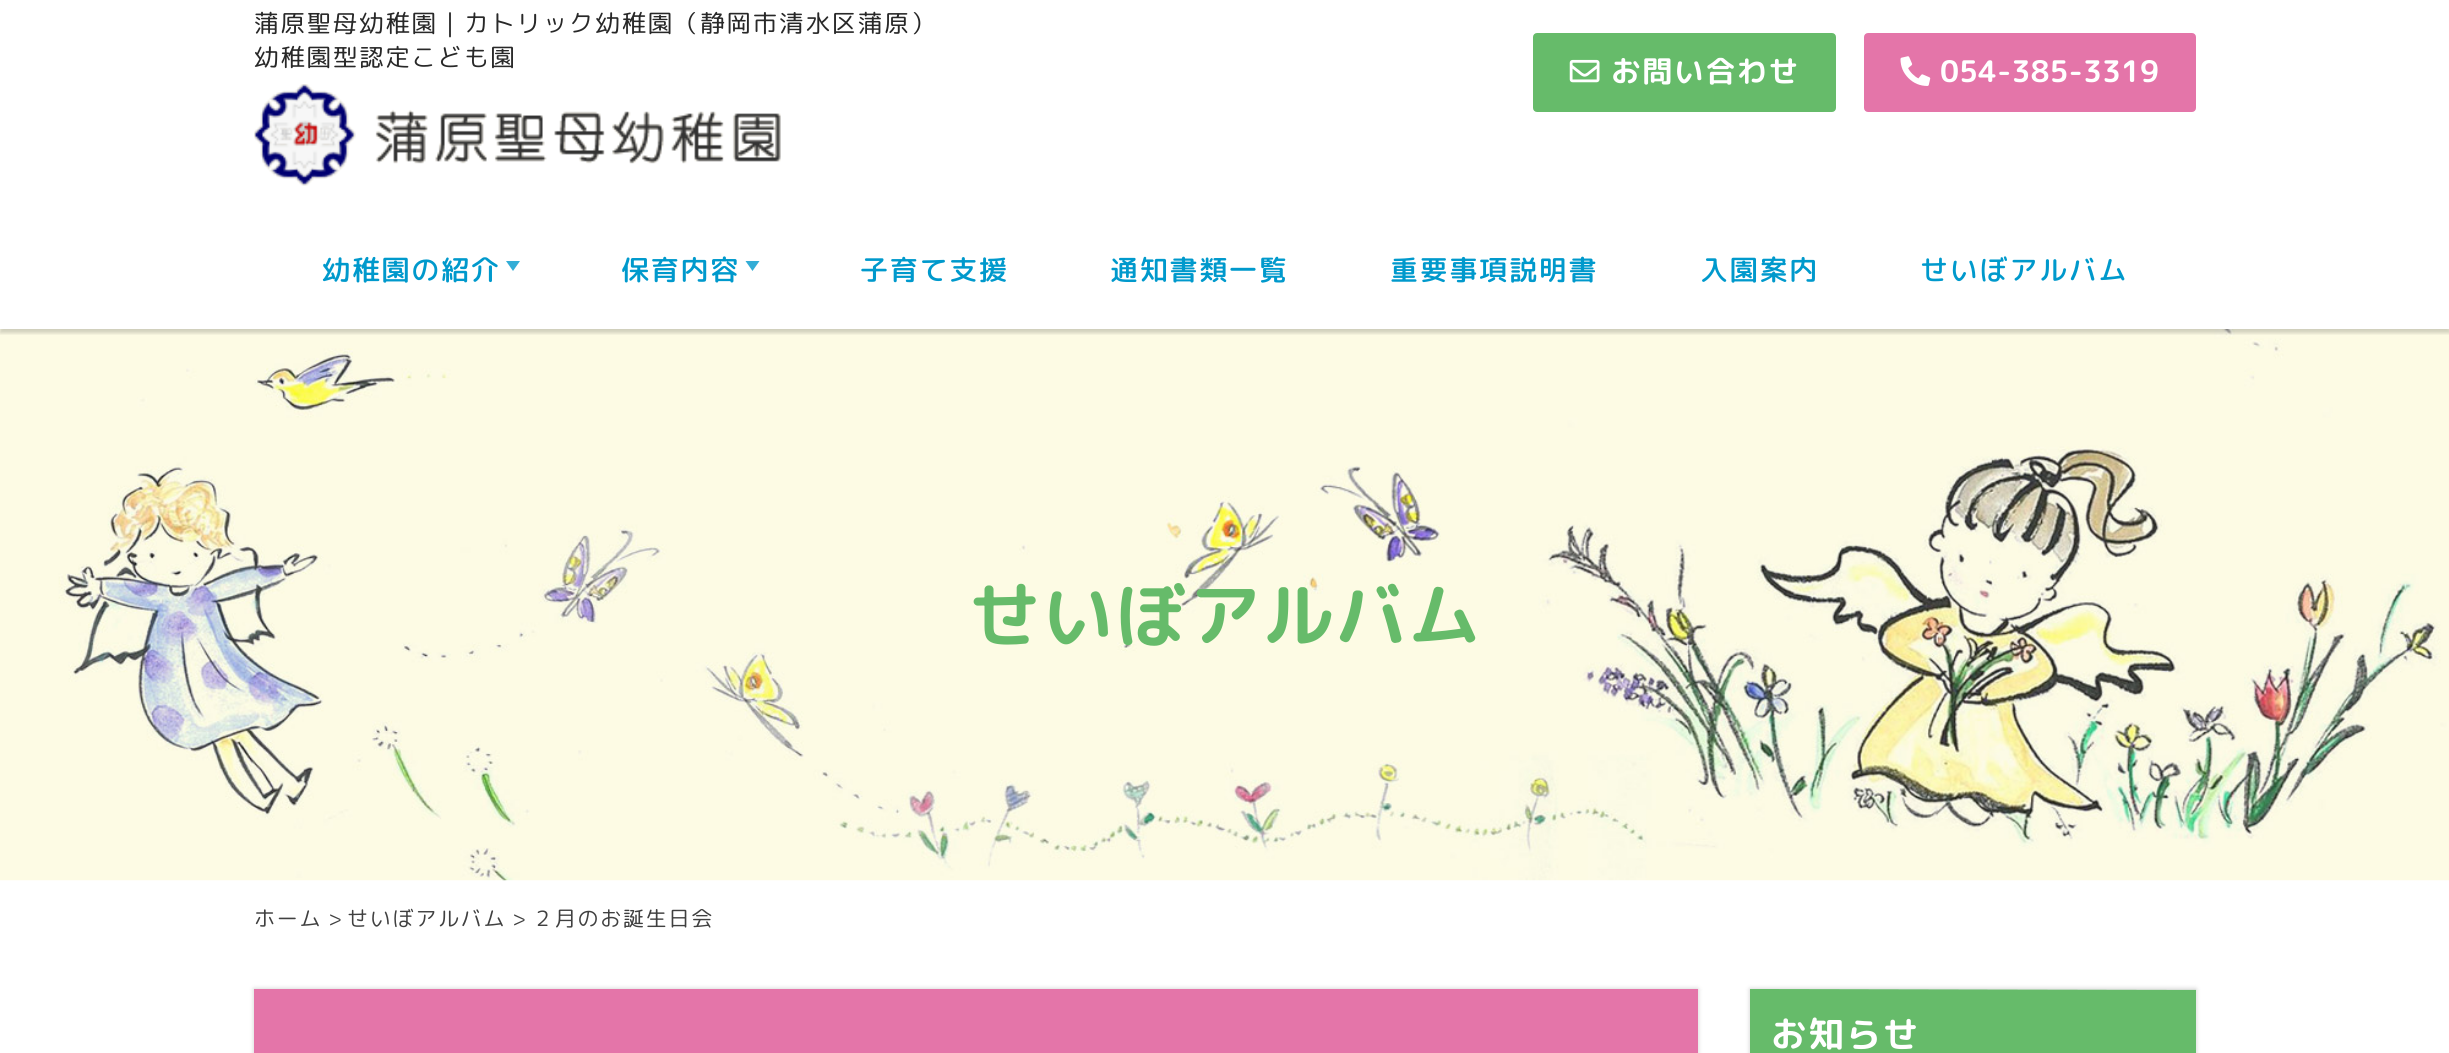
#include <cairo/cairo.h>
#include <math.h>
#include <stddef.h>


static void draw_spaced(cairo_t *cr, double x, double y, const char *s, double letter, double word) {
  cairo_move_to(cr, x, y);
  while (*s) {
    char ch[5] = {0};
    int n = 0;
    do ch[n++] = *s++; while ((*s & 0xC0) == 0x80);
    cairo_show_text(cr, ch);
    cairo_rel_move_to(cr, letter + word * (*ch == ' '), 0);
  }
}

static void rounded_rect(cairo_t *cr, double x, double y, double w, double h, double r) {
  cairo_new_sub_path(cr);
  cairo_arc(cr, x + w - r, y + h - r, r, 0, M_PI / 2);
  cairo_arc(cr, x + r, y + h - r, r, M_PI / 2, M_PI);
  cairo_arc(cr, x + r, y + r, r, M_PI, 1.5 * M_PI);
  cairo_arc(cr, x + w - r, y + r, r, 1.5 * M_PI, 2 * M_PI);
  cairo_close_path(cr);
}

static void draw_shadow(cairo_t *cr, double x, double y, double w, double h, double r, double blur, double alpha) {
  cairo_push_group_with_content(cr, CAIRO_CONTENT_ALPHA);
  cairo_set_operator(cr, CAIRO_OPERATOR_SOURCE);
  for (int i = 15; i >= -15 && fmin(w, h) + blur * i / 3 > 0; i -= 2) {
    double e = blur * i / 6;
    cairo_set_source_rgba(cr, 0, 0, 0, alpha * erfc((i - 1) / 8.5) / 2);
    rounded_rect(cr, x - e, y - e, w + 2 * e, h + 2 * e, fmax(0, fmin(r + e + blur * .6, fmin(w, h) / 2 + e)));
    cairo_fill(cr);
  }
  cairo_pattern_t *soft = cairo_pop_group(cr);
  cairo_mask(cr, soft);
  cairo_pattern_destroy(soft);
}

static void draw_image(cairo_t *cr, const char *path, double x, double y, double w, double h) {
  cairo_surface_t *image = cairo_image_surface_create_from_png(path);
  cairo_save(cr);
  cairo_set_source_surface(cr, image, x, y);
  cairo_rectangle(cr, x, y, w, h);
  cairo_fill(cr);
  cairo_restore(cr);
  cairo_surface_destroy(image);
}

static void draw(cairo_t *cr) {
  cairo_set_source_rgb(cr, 1, 1, 1);
  cairo_paint(cr);
  draw_image(cr, "images/1.png", 254, 84, 527, 102);
  cairo_set_source_rgb(cr, 102 / 255.0, 187 / 255.0, 106 / 255.0);
  rounded_rect(cr, 1534, 34, 301, 77, 3);
  cairo_fill_preserve(cr);
  cairo_stroke(cr);
  draw_image(cr, "images/2.png", 1569, 59, 31, 24);
  cairo_set_source_rgb(cr, 228 / 255.0, 117 / 255.0, 169 / 255.0);
  rounded_rect(cr, 1865, 34, 330, 77, 3);
  cairo_fill_preserve(cr);
  cairo_stroke(cr);
  draw_image(cr, "images/3.png", 1900, 56, 31, 30);
  draw_image(cr, "images/4.png", 0, 329, 2449, 552);
  cairo_save(cr);
  cairo_rectangle(cr, 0, 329, 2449, 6);
  cairo_clip(cr);
  cairo_set_source_rgb(cr, 0, 0, 0);
  draw_shadow(cr, 0, 215, 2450, 118, 0, 2, 0.18);
  cairo_restore(cr);
  cairo_set_source_rgb(cr, 51 / 255.0, 173 / 255.0, 214 / 255.0);
  cairo_new_path(cr);
  cairo_move_to(cr, 506, 261);
  cairo_line_to(cr, 520, 261);
  cairo_line_to(cr, 513, 271);
  cairo_close_path(cr);
  cairo_fill(cr);
  cairo_new_path(cr);
  cairo_move_to(cr, 745.5, 261);
  cairo_line_to(cr, 759.5, 261);
  cairo_line_to(cr, 752.5, 271);
  cairo_close_path(cr);
  cairo_fill(cr);
  cairo_set_source_rgb(cr, 0, 0, 0);
  draw_shadow(cr, 254, 989, 1444, 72, 0, 2.5, 0.2);
  cairo_set_source_rgb(cr, 228 / 255.0, 117 / 255.0, 169 / 255.0);
  cairo_rectangle(cr, 254, 989, 1444, 64);
  cairo_fill(cr);
  cairo_set_source_rgb(cr, 0, 0, 0);
  draw_shadow(cr, 1750, 989, 446, 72, 0, 2.5, 0.2);
  cairo_set_source_rgb(cr, 102 / 255.0, 187 / 255.0, 106 / 255.0);
  cairo_new_path(cr);
  cairo_move_to(cr, 1750, 989);
  cairo_line_to(cr, 2196, 990);
  cairo_line_to(cr, 2196, 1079);
  cairo_line_to(cr, 1750, 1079);
  cairo_close_path(cr);
  cairo_fill(cr);
  cairo_select_font_face(cr, "Rounded Mplus 1c", CAIRO_FONT_SLANT_NORMAL, CAIRO_FONT_WEIGHT_NORMAL);
  cairo_set_font_size(cr, 24.5);
  cairo_set_source_rgb(cr, 40 / 255.0, 40 / 255.0, 40 / 255.0);
  draw_spaced(cr, 254, 32, "蒲原聖母幼稚園｜カトリック幼稚園（静岡市清水区蒲原）", 1.75, 0);
  draw_spaced(cr, 254, 66, "幼稚園型認定こども園", 1.75, 0);
  cairo_select_font_face(cr, "Rounded Mplus 1c Bold", CAIRO_FONT_SLANT_NORMAL, CAIRO_FONT_WEIGHT_BOLD);
  cairo_set_font_size(cr, 29.75);
  cairo_set_source_rgb(cr, 1, 1, 1);
  draw_spaced(cr, 1611, 82, "お問い合わせ", 1.75, 0);
  cairo_move_to(cr, 1940, 82);
  cairo_show_text(cr, "054-385-3319");
  cairo_select_font_face(cr, "Rounded Mplus 1c Medium", CAIRO_FONT_SLANT_NORMAL, CAIRO_FONT_WEIGHT_NORMAL);
  cairo_set_font_size(cr, 28);
  cairo_set_source_rgb(cr, 0, 153 / 255.0, 204 / 255.0);
  draw_spaced(cr, 322, 280, "幼稚園の紹介", 1.75, 0);
  draw_spaced(cr, 621, 280, "保育内容", 1.75, 0);
  draw_spaced(cr, 860, 280, "子育て支援", 1.75, 0);
  draw_spaced(cr, 1110, 280, "通知書類一覧", 1.75, 0);
  draw_spaced(cr, 1390, 280, "重要事項説明書", 1.75, 0);
  draw_spaced(cr, 1700, 280, "入園案内", 1.75, 0);
  draw_spaced(cr, 1920, 280, "せいぼアルバム", 1.75, 0);
  cairo_select_font_face(cr, "Rounded Mplus 1c Bold", CAIRO_FONT_SLANT_NORMAL, CAIRO_FONT_WEIGHT_BOLD);
  cairo_set_font_size(cr, 71.5);
  cairo_set_source_rgb(cr, 102 / 255.0, 187 / 255.0, 106 / 255.0);
  draw_spaced(cr, 969, 641, "せいぼアルバム", 1.75, 0);
  cairo_select_font_face(cr, "Rounded Mplus 1c", CAIRO_FONT_SLANT_NORMAL, CAIRO_FONT_WEIGHT_NORMAL);
  cairo_set_font_size(cr, 21);
  cairo_set_source_rgb(cr, 64 / 255.0, 64 / 255.0, 64 / 255.0);
  draw_spaced(cr, 254, 926, "ホーム", 1.75, 0);
  cairo_move_to(cr, 328, 926);
  cairo_show_text(cr, ">");
  draw_spaced(cr, 347, 926, "せいぼアルバム", 1.75, 0);
  cairo_move_to(cr, 512, 926);
  cairo_show_text(cr, ">");
  draw_spaced(cr, 532, 926, "２月のお誕生日会", 1.75, 0);
  cairo_select_font_face(cr, "Rounded Mplus 1c Bold", CAIRO_FONT_SLANT_NORMAL, CAIRO_FONT_WEIGHT_BOLD);
  cairo_set_font_size(cr, 35.5);
  cairo_set_source_rgb(cr, 1, 1, 1);
  cairo_save(cr);
  cairo_translate(cr, 1771, 1047);
  cairo_rotate(cr, 0.1 * M_PI / 180);
  draw_spaced(cr, 0, 0, "お知らせ", 1.75, 0);
  cairo_restore(cr);
}

int main(void) {
  cairo_surface_t *surface = cairo_image_surface_create(CAIRO_FORMAT_RGB24, 2449, 1053);
  cairo_t *cr = cairo_create(surface);
  cairo_font_options_t *options = cairo_font_options_create();
  cairo_font_options_set_hint_metrics(options, CAIRO_HINT_METRICS_OFF);
  cairo_font_options_set_hint_style(options, CAIRO_HINT_STYLE_NONE);
  cairo_set_font_options(cr, options);
  cairo_set_miter_limit(cr, 4);
  draw(cr);
  cairo_surface_write_to_png(surface, "out.png");
  cairo_font_options_destroy(options);
  cairo_destroy(cr);
  cairo_surface_destroy(surface);
  return 0;
}
